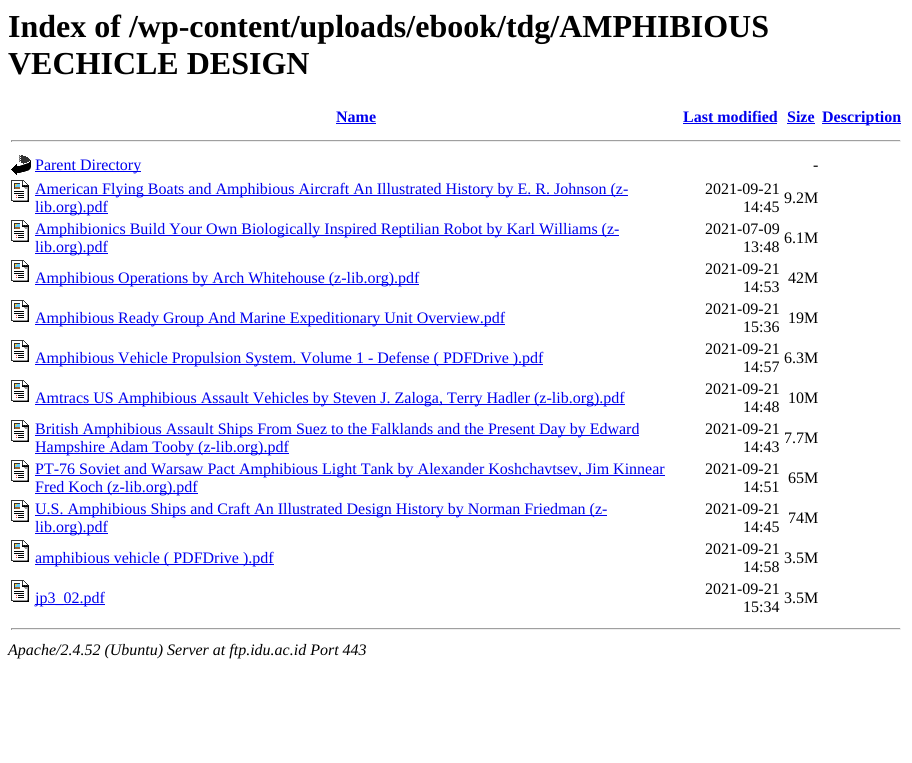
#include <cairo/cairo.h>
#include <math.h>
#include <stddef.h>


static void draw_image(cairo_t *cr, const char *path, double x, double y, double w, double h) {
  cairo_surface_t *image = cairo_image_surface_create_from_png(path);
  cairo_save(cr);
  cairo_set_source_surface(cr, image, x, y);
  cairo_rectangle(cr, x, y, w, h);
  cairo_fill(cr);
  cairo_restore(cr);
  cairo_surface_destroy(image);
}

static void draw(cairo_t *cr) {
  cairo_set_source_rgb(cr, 1, 1, 1);
  cairo_paint(cr);
  cairo_set_source_rgb(cr, 0, 0, 238 / 255.0);
  cairo_rectangle(cr, 336, 123, 40, 1);
  cairo_fill(cr);
  cairo_rectangle(cr, 683, 123, 94, 1);
  cairo_fill(cr);
  cairo_rectangle(cr, 787, 123, 28, 1);
  cairo_fill(cr);
  cairo_rectangle(cr, 822, 123, 79, 1);
  cairo_fill(cr);
  cairo_set_source_rgb(cr, 159 / 255.0, 159 / 255.0, 159 / 255.0);
  cairo_rectangle(cr, 11, 140, 890, 1);
  cairo_fill(cr);
  cairo_set_source_rgb(cr, 238 / 255.0, 238 / 255.0, 238 / 255.0);
  cairo_rectangle(cr, 900, 140, 1, 2);
  cairo_fill(cr);
  cairo_rectangle(cr, 11, 141, 890, 1);
  cairo_fill(cr);
  cairo_set_source_rgb(cr, 159 / 255.0, 159 / 255.0, 159 / 255.0);
  cairo_rectangle(cr, 11, 140, 1, 2);
  cairo_fill(cr);
  draw_image(cr, "images/1.png", 11, 155, 20, 20);
  cairo_set_source_rgb(cr, 0, 0, 238 / 255.0);
  cairo_rectangle(cr, 35, 171, 106, 1);
  cairo_fill(cr);
  draw_image(cr, "images/2.png", 11, 180, 18, 22);
  cairo_rectangle(cr, 35, 195, 593, 1);
  cairo_fill(cr);
  cairo_rectangle(cr, 35, 213, 73, 1);
  cairo_fill(cr);
  draw_image(cr, "images/2.png", 11, 220, 18, 22);
  cairo_rectangle(cr, 35, 235, 584, 1);
  cairo_fill(cr);
  cairo_rectangle(cr, 35, 253, 73, 1);
  cairo_fill(cr);
  draw_image(cr, "images/2.png", 11, 260, 18, 22);
  cairo_rectangle(cr, 35, 284, 384, 1);
  cairo_fill(cr);
  draw_image(cr, "images/2.png", 11, 300, 18, 22);
  cairo_rectangle(cr, 35, 324, 470, 1);
  cairo_fill(cr);
  draw_image(cr, "images/2.png", 11, 340, 18, 22);
  cairo_rectangle(cr, 35, 364, 508, 1);
  cairo_fill(cr);
  draw_image(cr, "images/2.png", 11, 380, 18, 22);
  cairo_rectangle(cr, 35, 404, 590, 1);
  cairo_fill(cr);
  draw_image(cr, "images/2.png", 11, 420, 18, 22);
  cairo_rectangle(cr, 35, 435, 604, 1);
  cairo_fill(cr);
  cairo_rectangle(cr, 35, 453, 254, 1);
  cairo_fill(cr);
  draw_image(cr, "images/2.png", 11, 460, 18, 22);
  cairo_rectangle(cr, 35, 475, 630, 1);
  cairo_fill(cr);
  cairo_rectangle(cr, 35, 493, 163, 1);
  cairo_fill(cr);
  draw_image(cr, "images/2.png", 11, 500, 18, 22);
  cairo_rectangle(cr, 35, 515, 572, 1);
  cairo_fill(cr);
  cairo_rectangle(cr, 35, 533, 73, 1);
  cairo_fill(cr);
  draw_image(cr, "images/2.png", 11, 540, 18, 22);
  cairo_rectangle(cr, 35, 564, 239, 1);
  cairo_fill(cr);
  draw_image(cr, "images/2.png", 11, 580, 18, 22);
  cairo_rectangle(cr, 35, 604, 70, 1);
  cairo_fill(cr);
  cairo_set_source_rgb(cr, 159 / 255.0, 159 / 255.0, 159 / 255.0);
  cairo_rectangle(cr, 11, 628, 890, 1);
  cairo_fill(cr);
  cairo_set_source_rgb(cr, 238 / 255.0, 238 / 255.0, 238 / 255.0);
  cairo_rectangle(cr, 900, 628, 1, 2);
  cairo_fill(cr);
  cairo_rectangle(cr, 11, 629, 890, 1);
  cairo_fill(cr);
  cairo_set_source_rgb(cr, 159 / 255.0, 159 / 255.0, 159 / 255.0);
  cairo_rectangle(cr, 11, 628, 1, 2);
  cairo_fill(cr);
  cairo_select_font_face(cr, "Liberation Serif", CAIRO_FONT_SLANT_NORMAL, CAIRO_FONT_WEIGHT_BOLD);
  cairo_set_font_size(cr, 32);
  cairo_set_source_rgb(cr, 0, 0, 0);
  cairo_move_to(cr, 8, 37);
  cairo_show_text(cr, "Index of /wp-content/uploads/ebook/tdg/AMPHIBIOUS");
  cairo_move_to(cr, 8, 74);
  cairo_show_text(cr, "VECHICLE DESIGN");
  cairo_set_font_size(cr, 16);
  cairo_set_source_rgb(cr, 0, 0, 238 / 255.0);
  cairo_move_to(cr, 336, 122);
  cairo_show_text(cr, "Name");
  cairo_move_to(cr, 683, 122);
  cairo_show_text(cr, "Last modified");
  cairo_move_to(cr, 787, 122);
  cairo_show_text(cr, "Size");
  cairo_move_to(cr, 822, 122);
  cairo_show_text(cr, "Description");
  cairo_select_font_face(cr, "Liberation Serif", CAIRO_FONT_SLANT_NORMAL, CAIRO_FONT_WEIGHT_NORMAL);
  cairo_move_to(cr, 35, 170);
  cairo_show_text(cr, "Parent Directory");
  cairo_set_source_rgb(cr, 0, 0, 0);
  cairo_move_to(cr, 813, 170);
  cairo_show_text(cr, "-");
  cairo_set_source_rgb(cr, 0, 0, 238 / 255.0);
  cairo_move_to(cr, 35, 194);
  cairo_show_text(cr, "American Flying Boats and Amphibious Aircraft An Illustrated History by E. R. Johnson (z-");
  cairo_move_to(cr, 35, 212);
  cairo_show_text(cr, "lib.org).pdf");
  cairo_set_source_rgb(cr, 0, 0, 0);
  cairo_move_to(cr, 705, 194);
  cairo_show_text(cr, "2021-09-21");
  cairo_move_to(cr, 743, 212);
  cairo_show_text(cr, "14:45");
  cairo_move_to(cr, 784, 203);
  cairo_show_text(cr, "9.2M");
  cairo_set_source_rgb(cr, 0, 0, 238 / 255.0);
  cairo_move_to(cr, 35, 234);
  cairo_show_text(cr, "Amphibionics Build Your Own Biologically Inspired Reptilian Robot by Karl Williams (z-");
  cairo_move_to(cr, 35, 252);
  cairo_show_text(cr, "lib.org).pdf");
  cairo_set_source_rgb(cr, 0, 0, 0);
  cairo_move_to(cr, 705, 234);
  cairo_show_text(cr, "2021-07-09");
  cairo_move_to(cr, 743, 252);
  cairo_show_text(cr, "13:48");
  cairo_move_to(cr, 784, 243);
  cairo_show_text(cr, "6.1M");
  cairo_set_source_rgb(cr, 0, 0, 238 / 255.0);
  cairo_move_to(cr, 35, 283);
  cairo_show_text(cr, "Amphibious Operations by Arch Whitehouse (z-lib.org).pdf");
  cairo_set_source_rgb(cr, 0, 0, 0);
  cairo_move_to(cr, 705, 274);
  cairo_show_text(cr, "2021-09-21");
  cairo_move_to(cr, 743, 292);
  cairo_show_text(cr, "14:53");
  cairo_move_to(cr, 788, 283);
  cairo_show_text(cr, "42M");
  cairo_set_source_rgb(cr, 0, 0, 238 / 255.0);
  cairo_move_to(cr, 35, 323);
  cairo_show_text(cr, "Amphibious Ready Group And Marine Expeditionary Unit Overview.pdf");
  cairo_set_source_rgb(cr, 0, 0, 0);
  cairo_move_to(cr, 705, 314);
  cairo_show_text(cr, "2021-09-21");
  cairo_move_to(cr, 743, 332);
  cairo_show_text(cr, "15:36");
  cairo_move_to(cr, 788, 323);
  cairo_show_text(cr, "19M");
  cairo_set_source_rgb(cr, 0, 0, 238 / 255.0);
  cairo_move_to(cr, 35, 363);
  cairo_show_text(cr, "Amphibious Vehicle Propulsion System. Volume 1 - Defense ( PDFDrive ).pdf");
  cairo_set_source_rgb(cr, 0, 0, 0);
  cairo_move_to(cr, 705, 354);
  cairo_show_text(cr, "2021-09-21");
  cairo_move_to(cr, 743, 372);
  cairo_show_text(cr, "14:57");
  cairo_move_to(cr, 784, 363);
  cairo_show_text(cr, "6.3M");
  cairo_set_source_rgb(cr, 0, 0, 238 / 255.0);
  cairo_move_to(cr, 35, 403);
  cairo_show_text(cr, "Amtracs US Amphibious Assault Vehicles by Steven J. Zaloga, Terry Hadler (z-lib.org).pdf");
  cairo_set_source_rgb(cr, 0, 0, 0);
  cairo_move_to(cr, 705, 394);
  cairo_show_text(cr, "2021-09-21");
  cairo_move_to(cr, 743, 412);
  cairo_show_text(cr, "14:48");
  cairo_move_to(cr, 788, 403);
  cairo_show_text(cr, "10M");
  cairo_set_source_rgb(cr, 0, 0, 238 / 255.0);
  cairo_move_to(cr, 35, 434);
  cairo_show_text(cr, "British Amphibious Assault Ships From Suez to the Falklands and the Present Day by Edward");
  cairo_move_to(cr, 35, 452);
  cairo_show_text(cr, "Hampshire Adam Tooby (z-lib.org).pdf");
  cairo_set_source_rgb(cr, 0, 0, 0);
  cairo_move_to(cr, 705, 434);
  cairo_show_text(cr, "2021-09-21");
  cairo_move_to(cr, 743, 452);
  cairo_show_text(cr, "14:43");
  cairo_move_to(cr, 784, 443);
  cairo_show_text(cr, "7.7M");
  cairo_set_source_rgb(cr, 0, 0, 238 / 255.0);
  cairo_move_to(cr, 35, 474);
  cairo_show_text(cr, "PT-76 Soviet and Warsaw Pact Amphibious Light Tank by Alexander Koshchavtsev, Jim Kinnear");
  cairo_move_to(cr, 35, 492);
  cairo_show_text(cr, "Fred Koch (z-lib.org).pdf");
  cairo_set_source_rgb(cr, 0, 0, 0);
  cairo_move_to(cr, 705, 474);
  cairo_show_text(cr, "2021-09-21");
  cairo_move_to(cr, 743, 492);
  cairo_show_text(cr, "14:51");
  cairo_move_to(cr, 788, 483);
  cairo_show_text(cr, "65M");
  cairo_set_source_rgb(cr, 0, 0, 238 / 255.0);
  cairo_move_to(cr, 35, 514);
  cairo_show_text(cr, "U.S. Amphibious Ships and Craft An Illustrated Design History by Norman Friedman (z-");
  cairo_move_to(cr, 35, 532);
  cairo_show_text(cr, "lib.org).pdf");
  cairo_set_source_rgb(cr, 0, 0, 0);
  cairo_move_to(cr, 705, 514);
  cairo_show_text(cr, "2021-09-21");
  cairo_move_to(cr, 743, 532);
  cairo_show_text(cr, "14:45");
  cairo_move_to(cr, 788, 523);
  cairo_show_text(cr, "74M");
  cairo_set_source_rgb(cr, 0, 0, 238 / 255.0);
  cairo_move_to(cr, 35, 563);
  cairo_show_text(cr, "amphibious vehicle ( PDFDrive ).pdf");
  cairo_set_source_rgb(cr, 0, 0, 0);
  cairo_move_to(cr, 705, 554);
  cairo_show_text(cr, "2021-09-21");
  cairo_move_to(cr, 743, 572);
  cairo_show_text(cr, "14:58");
  cairo_move_to(cr, 784, 563);
  cairo_show_text(cr, "3.5M");
  cairo_set_source_rgb(cr, 0, 0, 238 / 255.0);
  cairo_move_to(cr, 35, 603);
  cairo_show_text(cr, "jp3_02.pdf");
  cairo_set_source_rgb(cr, 0, 0, 0);
  cairo_move_to(cr, 705, 594);
  cairo_show_text(cr, "2021-09-21");
  cairo_move_to(cr, 743, 612);
  cairo_show_text(cr, "15:34");
  cairo_move_to(cr, 784, 603);
  cairo_show_text(cr, "3.5M");
  cairo_select_font_face(cr, "Liberation Serif", CAIRO_FONT_SLANT_ITALIC, CAIRO_FONT_WEIGHT_NORMAL);
  cairo_move_to(cr, 8, 655);
  cairo_show_text(cr, "Apache/2.4.52 (Ubuntu) Server at ftp.idu.ac.id Port 443");
}

int main(void) {
  cairo_surface_t *surface = cairo_image_surface_create(CAIRO_FORMAT_RGB24, 912, 763);
  cairo_t *cr = cairo_create(surface);
  cairo_font_options_t *options = cairo_font_options_create();
  cairo_font_options_set_hint_metrics(options, CAIRO_HINT_METRICS_OFF);
  cairo_font_options_set_hint_style(options, CAIRO_HINT_STYLE_NONE);
  cairo_set_font_options(cr, options);
  cairo_set_miter_limit(cr, 4);
  draw(cr);
  cairo_surface_write_to_png(surface, "out.png");
  cairo_font_options_destroy(options);
  cairo_destroy(cr);
  cairo_surface_destroy(surface);
  return 0;
}
